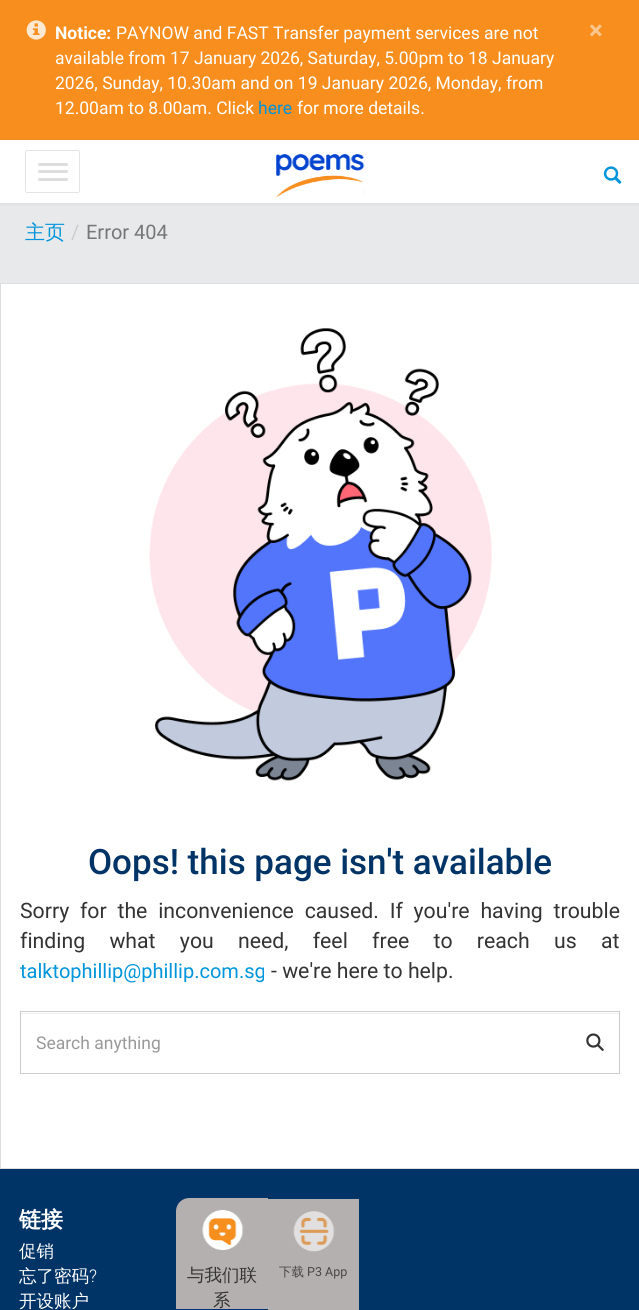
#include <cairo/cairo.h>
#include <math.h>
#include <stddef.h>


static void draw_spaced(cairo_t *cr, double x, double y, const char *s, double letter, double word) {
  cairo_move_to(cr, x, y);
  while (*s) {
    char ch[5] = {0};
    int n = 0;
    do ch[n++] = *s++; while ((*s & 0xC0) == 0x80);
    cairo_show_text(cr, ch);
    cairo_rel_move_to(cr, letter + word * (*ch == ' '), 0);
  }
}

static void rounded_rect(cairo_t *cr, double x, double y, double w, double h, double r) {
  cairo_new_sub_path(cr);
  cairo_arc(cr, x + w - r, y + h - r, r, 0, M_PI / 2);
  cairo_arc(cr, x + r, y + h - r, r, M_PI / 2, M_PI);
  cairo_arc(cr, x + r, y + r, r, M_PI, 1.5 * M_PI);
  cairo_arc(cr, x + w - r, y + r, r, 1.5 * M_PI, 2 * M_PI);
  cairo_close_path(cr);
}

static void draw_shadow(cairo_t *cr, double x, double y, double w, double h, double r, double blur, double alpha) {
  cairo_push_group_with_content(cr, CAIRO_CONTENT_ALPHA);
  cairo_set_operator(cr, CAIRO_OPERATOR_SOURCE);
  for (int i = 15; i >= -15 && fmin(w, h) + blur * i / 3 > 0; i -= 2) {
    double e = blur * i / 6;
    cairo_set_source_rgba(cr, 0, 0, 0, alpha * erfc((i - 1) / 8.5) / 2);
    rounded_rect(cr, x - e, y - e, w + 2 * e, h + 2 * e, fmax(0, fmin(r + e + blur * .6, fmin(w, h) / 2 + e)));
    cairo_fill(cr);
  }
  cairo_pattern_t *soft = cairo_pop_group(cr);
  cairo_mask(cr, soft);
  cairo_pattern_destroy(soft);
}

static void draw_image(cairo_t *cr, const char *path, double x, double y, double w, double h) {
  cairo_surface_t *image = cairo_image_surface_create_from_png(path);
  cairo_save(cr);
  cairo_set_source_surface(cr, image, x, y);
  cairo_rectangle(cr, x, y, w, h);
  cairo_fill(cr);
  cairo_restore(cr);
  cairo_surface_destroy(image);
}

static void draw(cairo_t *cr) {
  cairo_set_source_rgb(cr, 232 / 255.0, 233 / 255.0, 234 / 255.0);
  cairo_paint(cr);
  cairo_set_source_rgb(cr, 247 / 255.0, 142 / 255.0, 30 / 255.0);
  cairo_rectangle(cr, 0, 0, 639, 140);
  cairo_fill(cr);
  draw_image(cr, "images/1.png", 26, 20, 20, 20);
  cairo_set_source_rgb(cr, 0, 0, 0);
  draw_shadow(cr, 0, 141, 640, 63, 0, 2, 0.07);
  cairo_set_source_rgb(cr, 1, 1, 1);
  cairo_rectangle(cr, 0, 140, 639, 63);
  cairo_fill(cr);
  rounded_rect(cr, 25.4, 150.4, 54.2, 42.2, 2.1);
  cairo_set_source_rgb(cr, 221 / 255.0, 221 / 255.0, 221 / 255.0);
  cairo_set_line_width(cr, 0.8);
  cairo_stroke(cr);
  rounded_rect(cr, 38, 163, 30, 3, 1.5);
  cairo_fill(cr);
  rounded_rect(cr, 38, 170, 30, 3, 1.5);
  cairo_fill(cr);
  rounded_rect(cr, 38, 178, 30, 3, 1.5);
  cairo_fill(cr);
  draw_image(cr, "images/2.png", 276, 154, 89, 44);
  draw_image(cr, "images/3.png", 603, 166, 19, 18);
  cairo_set_source_rgb(cr, 1, 1, 1);
  cairo_rectangle(cr, 0.5, 283.5, 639, 885);
  cairo_fill_preserve(cr);
  cairo_set_source_rgb(cr, 221 / 255.0, 221 / 255.0, 221 / 255.0);
  cairo_set_line_width(cr, 1);
  cairo_stroke(cr);
  draw_image(cr, "images/4.png", 149, 328, 343, 453);
  cairo_set_source_rgb(cr, 236 / 255.0, 236 / 255.0, 236 / 255.0);
  cairo_rectangle(cr, 21, 1013, 598, 1);
  cairo_fill(cr);
  cairo_rectangle(cr, 20.5, 1011.5, 599, 62);
  cairo_set_source_rgb(cr, 204 / 255.0, 204 / 255.0, 204 / 255.0);
  cairo_stroke(cr);
  draw_image(cr, "images/5.png", 586, 1033, 18, 18);
  cairo_set_source_rgb(cr, 0, 51 / 255.0, 102 / 255.0);
  cairo_rectangle(cr, 0, 1169, 639, 141);
  cairo_fill(cr);
  cairo_set_source_rgb(cr, 180 / 255.0, 176 / 255.0, 176 / 255.0);
  cairo_new_path(cr);
  cairo_move_to(cr, 189, 1198);
  cairo_line_to(cr, 268, 1198);
  cairo_line_to(cr, 268, 1309);
  cairo_line_to(cr, 176, 1309);
  cairo_line_to(cr, 176, 1211);
  cairo_curve_to(cr, 176, 1204, 182, 1198, 189, 1198);
  cairo_close_path(cr);
  cairo_fill(cr);
  draw_image(cr, "images/6.png", 202, 1210, 42, 40);
  cairo_rectangle(cr, 268, 1199, 91, 111);
  cairo_fill(cr);
  draw_image(cr, "images/7.png", 293, 1211, 42, 41);
  cairo_select_font_face(cr, "Roboto", CAIRO_FONT_SLANT_NORMAL, CAIRO_FONT_WEIGHT_BOLD);
  cairo_set_font_size(cr, 17.5);
  cairo_set_source_rgb(cr, 1, 1, 1);
  cairo_move_to(cr, 55, 39);
  cairo_show_text(cr, "Notice:");
  cairo_select_font_face(cr, "Roboto", CAIRO_FONT_SLANT_NORMAL, CAIRO_FONT_WEIGHT_NORMAL);
  cairo_move_to(cr, 116, 39);
  cairo_show_text(cr, "PAYNOW and FAST Transfer payment services are not");
  cairo_select_font_face(cr, "Roboto", CAIRO_FONT_SLANT_NORMAL, CAIRO_FONT_WEIGHT_BOLD);
  cairo_set_font_size(cr, 26);
  cairo_set_source_rgb(cr, 251 / 255.0, 199 / 255.0, 143 / 255.0);
  cairo_move_to(cr, 589, 39);
  cairo_show_text(cr, "×");
  cairo_select_font_face(cr, "Roboto", CAIRO_FONT_SLANT_NORMAL, CAIRO_FONT_WEIGHT_NORMAL);
  cairo_set_font_size(cr, 17.5);
  cairo_set_source_rgb(cr, 1, 1, 1);
  cairo_move_to(cr, 55, 64);
  cairo_show_text(cr, "available from 17 January 2026, Saturday, 5.00pm to 18 January");
  cairo_move_to(cr, 55, 89);
  cairo_show_text(cr, "2026, Sunday, 10.30am and on 19 January 2026, Monday, from");
  cairo_move_to(cr, 55, 114);
  cairo_show_text(cr, "12.00am to 8.00am. Click");
  cairo_set_source_rgb(cr, 0, 148 / 255.0, 218 / 255.0);
  cairo_move_to(cr, 258, 114);
  cairo_show_text(cr, "here");
  cairo_set_source_rgb(cr, 1, 1, 1);
  cairo_move_to(cr, 297, 114);
  cairo_show_text(cr, "for more details.");
  cairo_select_font_face(cr, "WenQuanYi Zen Hei Medium", CAIRO_FONT_SLANT_NORMAL, CAIRO_FONT_WEIGHT_NORMAL);
  cairo_set_font_size(cr, 20);
  cairo_set_source_rgb(cr, 0, 148 / 255.0, 218 / 255.0);
  cairo_move_to(cr, 25, 239);
  cairo_show_text(cr, "主页");
  cairo_select_font_face(cr, "Roboto", CAIRO_FONT_SLANT_NORMAL, CAIRO_FONT_WEIGHT_NORMAL);
  cairo_set_source_rgb(cr, 204 / 255.0, 204 / 255.0, 204 / 255.0);
  cairo_move_to(cr, 71, 239);
  cairo_show_text(cr, "/");
  cairo_set_source_rgb(cr, 119 / 255.0, 119 / 255.0, 119 / 255.0);
  cairo_move_to(cr, 86, 239);
  cairo_show_text(cr, "Error 404");
  cairo_select_font_face(cr, "Roboto Medium", CAIRO_FONT_SLANT_NORMAL, CAIRO_FONT_WEIGHT_NORMAL);
  cairo_set_font_size(cr, 35);
  cairo_set_source_rgb(cr, 0, 51 / 255.0, 102 / 255.0);
  cairo_move_to(cr, 88, 874);
  cairo_show_text(cr, "Oops! this page isn't available");
  cairo_select_font_face(cr, "Roboto", CAIRO_FONT_SLANT_NORMAL, CAIRO_FONT_WEIGHT_NORMAL);
  cairo_set_font_size(cr, 21.25);
  cairo_set_source_rgb(cr, 51 / 255.0, 51 / 255.0, 51 / 255.0);
  draw_spaced(cr, 20, 918, "Sorry for the inconvenience caused. If you're having trouble", 0, 5.5);
  draw_spaced(cr, 20, 948, "finding what you need, feel free to reach us at", 0, 19);
  cairo_set_font_size(cr, 20);
  cairo_set_source_rgb(cr, 0, 148 / 255.0, 218 / 255.0);
  cairo_move_to(cr, 20, 978);
  cairo_show_text(cr, "talktophillip@phillip.com.sg");
  cairo_set_font_size(cr, 21.25);
  cairo_set_source_rgb(cr, 51 / 255.0, 51 / 255.0, 51 / 255.0);
  cairo_move_to(cr, 271, 978);
  cairo_show_text(cr, "- we're here to help.");
  cairo_set_font_size(cr, 17.5);
  cairo_set_source_rgb(cr, 153 / 255.0, 153 / 255.0, 153 / 255.0);
  cairo_move_to(cr, 36, 1049);
  cairo_show_text(cr, "Search anything");
  cairo_select_font_face(cr, "WenQuanYi Zen Hei", CAIRO_FONT_SLANT_NORMAL, CAIRO_FONT_WEIGHT_BOLD);
  cairo_set_font_size(cr, 22);
  cairo_set_source_rgb(cr, 1, 1, 1);
  cairo_move_to(cr, 19, 1227);
  cairo_show_text(cr, "链接");
  cairo_select_font_face(cr, "WenQuanYi Zen Hei Medium", CAIRO_FONT_SLANT_NORMAL, CAIRO_FONT_WEIGHT_NORMAL);
  cairo_set_font_size(cr, 17.5);
  cairo_move_to(cr, 19, 1257);
  cairo_show_text(cr, "促销");
  cairo_move_to(cr, 19, 1282);
  cairo_show_text(cr, "忘了密码");
  cairo_select_font_face(cr, "Roboto Light", CAIRO_FONT_SLANT_NORMAL, CAIRO_FONT_WEIGHT_NORMAL);
  cairo_move_to(cr, 89, 1282);
  cairo_show_text(cr, "?");
  cairo_select_font_face(cr, "WenQuanYi Zen Hei Medium", CAIRO_FONT_SLANT_NORMAL, CAIRO_FONT_WEIGHT_NORMAL);
  cairo_move_to(cr, 19, 1307);
  cairo_show_text(cr, "开设账户");
  cairo_set_source_rgb(cr, 51 / 255.0, 51 / 255.0, 51 / 255.0);
  cairo_move_to(cr, 187, 1281);
  cairo_show_text(cr, "与我们联");
  cairo_move_to(cr, 213, 1306);
  cairo_show_text(cr, "系");
  cairo_set_font_size(cr, 12.5);
  cairo_set_source_rgb(cr, 72 / 255.0, 70 / 255.0, 70 / 255.0);
  cairo_move_to(cr, 279, 1276);
  cairo_show_text(cr, "下载");
  cairo_select_font_face(cr, "Roboto", CAIRO_FONT_SLANT_NORMAL, CAIRO_FONT_WEIGHT_NORMAL);
  cairo_move_to(cr, 307, 1276);
  cairo_show_text(cr, "P3 App");
}

int main(void) {
  cairo_surface_t *surface = cairo_image_surface_create(CAIRO_FORMAT_RGB24, 639, 1310);
  cairo_t *cr = cairo_create(surface);
  cairo_font_options_t *options = cairo_font_options_create();
  cairo_font_options_set_hint_metrics(options, CAIRO_HINT_METRICS_OFF);
  cairo_font_options_set_hint_style(options, CAIRO_HINT_STYLE_NONE);
  cairo_set_font_options(cr, options);
  cairo_set_miter_limit(cr, 4);
  draw(cr);
  cairo_surface_write_to_png(surface, "out.png");
  cairo_font_options_destroy(options);
  cairo_destroy(cr);
  cairo_surface_destroy(surface);
  return 0;
}
